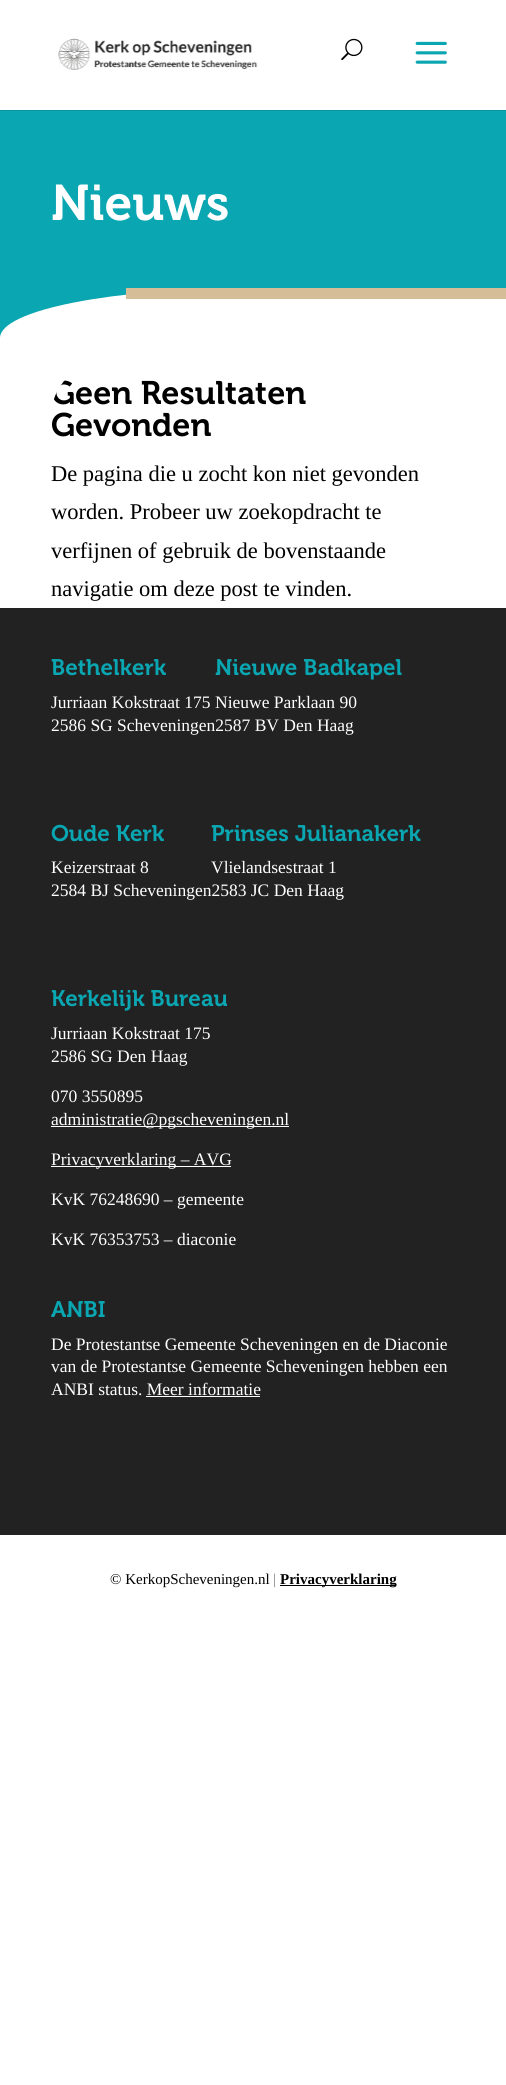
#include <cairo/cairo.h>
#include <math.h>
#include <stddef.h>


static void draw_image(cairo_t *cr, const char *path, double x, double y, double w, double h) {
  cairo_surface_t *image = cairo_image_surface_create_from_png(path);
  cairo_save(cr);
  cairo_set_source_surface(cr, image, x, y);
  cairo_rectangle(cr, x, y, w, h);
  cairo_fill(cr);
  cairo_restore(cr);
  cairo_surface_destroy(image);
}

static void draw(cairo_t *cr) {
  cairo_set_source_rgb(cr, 1, 1, 1);
  cairo_paint(cr);
  cairo_set_source_rgb(cr, 9 / 255.0, 149 / 255.0, 159 / 255.0);
  cairo_rectangle(cr, 0, 110, 506, 1);
  cairo_fill(cr);
  draw_image(cr, "images/1.png", 58, 38, 200, 32);
  draw_image(cr, "images/2.png", 341, 38, 22, 23);
  draw_image(cr, "images/3.png", 415, 41, 32, 23);
  cairo_set_source_rgb(cr, 10 / 255.0, 166 / 255.0, 177 / 255.0);
  cairo_rectangle(cr, 0, 111, 506, 227);
  cairo_fill(cr);
  cairo_set_source_rgb(cr, 1, 1, 1);
  cairo_new_path(cr);
  cairo_move_to(cr, 253, 288);
  cairo_line_to(cr, 506, 288);
  cairo_line_to(cr, 506, 608);
  cairo_line_to(cr, 0, 608);
  cairo_line_to(cr, 0, 338);
  cairo_curve_to(cr, 0, 310, 113, 288, 253, 288);
  cairo_close_path(cr);
  cairo_fill(cr);
  cairo_set_source_rgb(cr, 213 / 255.0, 190 / 255.0, 151 / 255.0);
  cairo_rectangle(cr, 126, 288, 380, 11);
  cairo_fill(cr);
  cairo_set_source_rgb(cr, 34 / 255.0, 34 / 255.0, 34 / 255.0);
  cairo_rectangle(cr, 0, 608, 506, 927);
  cairo_fill(cr);
  cairo_set_source_rgb(cr, 1, 1, 1);
  cairo_rectangle(cr, 51, 1126, 238, 1);
  cairo_fill(cr);
  cairo_rectangle(cr, 51, 1166, 180, 1);
  cairo_fill(cr);
  cairo_rectangle(cr, 146, 1396, 114, 1);
  cairo_fill(cr);
  cairo_set_source_rgb(cr, 0, 0, 0);
  cairo_rectangle(cr, 280, 1585, 116, 1);
  cairo_fill(cr);
  cairo_select_font_face(cr, "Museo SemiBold", CAIRO_FONT_SLANT_NORMAL, CAIRO_FONT_WEIGHT_NORMAL);
  cairo_set_font_size(cr, 50);
  cairo_set_source_rgb(cr, 1, 1, 1);
  cairo_move_to(cr, 51, 220);
  cairo_show_text(cr, "Nieuws");
  cairo_save(cr);
  cairo_new_path(cr);
  cairo_move_to(cr, 107, 361);
  cairo_line_to(cr, 456, 361);
  cairo_line_to(cr, 456, 608);
  cairo_line_to(cr, 51, 608);
  cairo_line_to(cr, 51, 417);
  cairo_curve_to(cr, 51, 386, 76, 361, 107, 361);
  cairo_close_path(cr);
  cairo_clip(cr);
  cairo_set_font_size(cr, 32.5);
  cairo_set_source_rgb(cr, 0, 0, 0);
  cairo_move_to(cr, 51, 404);
  cairo_show_text(cr, "Geen Resultaten");
  cairo_restore(cr);
  cairo_set_font_size(cr, 32.5);
  cairo_set_source_rgb(cr, 0, 0, 0);
  cairo_move_to(cr, 51, 436);
  cairo_show_text(cr, "Gevonden");
  cairo_select_font_face(cr, "Liberation Serif", CAIRO_FONT_SLANT_NORMAL, CAIRO_FONT_WEIGHT_NORMAL);
  cairo_set_font_size(cr, 22.5);
  cairo_move_to(cr, 51, 481);
  cairo_show_text(cr, "De pagina die u zocht kon niet gevonden");
  cairo_move_to(cr, 51, 519);
  cairo_show_text(cr, "worden. Probeer uw zoekopdracht te");
  cairo_move_to(cr, 51, 558);
  cairo_show_text(cr, "verfijnen of gebruik de bovenstaande");
  cairo_move_to(cr, 51, 596);
  cairo_show_text(cr, "navigatie om deze post te vinden.");
  cairo_select_font_face(cr, "Museo SemiBold", CAIRO_FONT_SLANT_NORMAL, CAIRO_FONT_WEIGHT_NORMAL);
  cairo_set_source_rgb(cr, 10 / 255.0, 166 / 255.0, 177 / 255.0);
  cairo_move_to(cr, 51, 675);
  cairo_show_text(cr, "Bethelkerk");
  cairo_select_font_face(cr, "Liberation Serif", CAIRO_FONT_SLANT_NORMAL, CAIRO_FONT_WEIGHT_NORMAL);
  cairo_set_font_size(cr, 17.5);
  cairo_set_source_rgb(cr, 1, 1, 1);
  cairo_move_to(cr, 51, 708);
  cairo_show_text(cr, "Jurriaan Kokstraat 175");
  cairo_move_to(cr, 51, 731);
  cairo_show_text(cr, "2586 SG Scheveningen2587 BV Den Haag");
  cairo_select_font_face(cr, "Museo SemiBold", CAIRO_FONT_SLANT_NORMAL, CAIRO_FONT_WEIGHT_NORMAL);
  cairo_set_font_size(cr, 22.5);
  cairo_set_source_rgb(cr, 10 / 255.0, 166 / 255.0, 177 / 255.0);
  cairo_move_to(cr, 215, 675);
  cairo_show_text(cr, "Nieuwe Badkapel");
  cairo_select_font_face(cr, "Liberation Serif", CAIRO_FONT_SLANT_NORMAL, CAIRO_FONT_WEIGHT_NORMAL);
  cairo_set_font_size(cr, 17.5);
  cairo_set_source_rgb(cr, 1, 1, 1);
  cairo_move_to(cr, 215, 708);
  cairo_show_text(cr, "Nieuwe Parklaan 90");
  cairo_select_font_face(cr, "Museo SemiBold", CAIRO_FONT_SLANT_NORMAL, CAIRO_FONT_WEIGHT_NORMAL);
  cairo_set_font_size(cr, 22.5);
  cairo_set_source_rgb(cr, 10 / 255.0, 166 / 255.0, 177 / 255.0);
  cairo_move_to(cr, 51, 841);
  cairo_show_text(cr, "Oude Kerk");
  cairo_select_font_face(cr, "Liberation Serif", CAIRO_FONT_SLANT_NORMAL, CAIRO_FONT_WEIGHT_NORMAL);
  cairo_set_font_size(cr, 17.5);
  cairo_set_source_rgb(cr, 1, 1, 1);
  cairo_move_to(cr, 51, 873);
  cairo_show_text(cr, "Keizerstraat 8");
  cairo_move_to(cr, 51, 896);
  cairo_show_text(cr, "2584 BJ Scheveningen2583 JC Den Haag");
  cairo_select_font_face(cr, "Museo SemiBold", CAIRO_FONT_SLANT_NORMAL, CAIRO_FONT_WEIGHT_NORMAL);
  cairo_set_font_size(cr, 22.5);
  cairo_set_source_rgb(cr, 10 / 255.0, 166 / 255.0, 177 / 255.0);
  cairo_move_to(cr, 211, 841);
  cairo_show_text(cr, "Prinses Julianakerk");
  cairo_select_font_face(cr, "Liberation Serif", CAIRO_FONT_SLANT_NORMAL, CAIRO_FONT_WEIGHT_NORMAL);
  cairo_set_font_size(cr, 17.5);
  cairo_set_source_rgb(cr, 1, 1, 1);
  cairo_move_to(cr, 211, 873);
  cairo_show_text(cr, "Vlielandsestraat 1");
  cairo_select_font_face(cr, "Museo SemiBold", CAIRO_FONT_SLANT_NORMAL, CAIRO_FONT_WEIGHT_NORMAL);
  cairo_set_font_size(cr, 22.5);
  cairo_set_source_rgb(cr, 10 / 255.0, 166 / 255.0, 177 / 255.0);
  cairo_move_to(cr, 51, 1006);
  cairo_show_text(cr, "Kerkelijk Bureau");
  cairo_select_font_face(cr, "Liberation Serif", CAIRO_FONT_SLANT_NORMAL, CAIRO_FONT_WEIGHT_NORMAL);
  cairo_set_font_size(cr, 17.5);
  cairo_set_source_rgb(cr, 1, 1, 1);
  cairo_move_to(cr, 51, 1039);
  cairo_show_text(cr, "Jurriaan Kokstraat 175");
  cairo_move_to(cr, 51, 1062);
  cairo_show_text(cr, "2586 SG Den Haag");
  cairo_move_to(cr, 51, 1102);
  cairo_show_text(cr, "070 3550895");
  cairo_move_to(cr, 51, 1125);
  cairo_show_text(cr, "administratie@pgscheveningen.nl");
  cairo_move_to(cr, 51, 1165);
  cairo_show_text(cr, "Privacyverklaring – AVG");
  cairo_move_to(cr, 51, 1205);
  cairo_show_text(cr, "KvK 76248690 – gemeente");
  cairo_move_to(cr, 51, 1245);
  cairo_show_text(cr, "KvK 76353753 – diaconie");
  cairo_select_font_face(cr, "Museo SemiBold", CAIRO_FONT_SLANT_NORMAL, CAIRO_FONT_WEIGHT_NORMAL);
  cairo_set_font_size(cr, 22.5);
  cairo_set_source_rgb(cr, 10 / 255.0, 166 / 255.0, 177 / 255.0);
  cairo_move_to(cr, 51, 1317);
  cairo_show_text(cr, "ANBI");
  cairo_select_font_face(cr, "Liberation Serif", CAIRO_FONT_SLANT_NORMAL, CAIRO_FONT_WEIGHT_NORMAL);
  cairo_set_font_size(cr, 17.5);
  cairo_set_source_rgb(cr, 1, 1, 1);
  cairo_move_to(cr, 51, 1350);
  cairo_show_text(cr, "De Protestantse Gemeente Scheveningen en de Diaconie");
  cairo_move_to(cr, 51, 1372);
  cairo_show_text(cr, "van de Protestantse Gemeente Scheveningen hebben een");
  cairo_move_to(cr, 51, 1395);
  cairo_show_text(cr, "ANBI status. Meer informatie");
  cairo_set_font_size(cr, 15);
  cairo_set_source_rgb(cr, 0, 0, 0);
  cairo_move_to(cr, 110, 1584);
  cairo_show_text(cr, "© KerkopScheveningen.nl |");
  cairo_select_font_face(cr, "Liberation Serif", CAIRO_FONT_SLANT_NORMAL, CAIRO_FONT_WEIGHT_BOLD);
  cairo_move_to(cr, 280, 1584);
  cairo_show_text(cr, "Privacyverklaring");
}

int main(void) {
  cairo_surface_t *surface = cairo_image_surface_create(CAIRO_FORMAT_RGB24, 506, 2085);
  cairo_t *cr = cairo_create(surface);
  cairo_font_options_t *options = cairo_font_options_create();
  cairo_font_options_set_hint_metrics(options, CAIRO_HINT_METRICS_OFF);
  cairo_font_options_set_hint_style(options, CAIRO_HINT_STYLE_NONE);
  cairo_set_font_options(cr, options);
  cairo_set_miter_limit(cr, 4);
  draw(cr);
  cairo_surface_write_to_png(surface, "out.png");
  cairo_font_options_destroy(options);
  cairo_destroy(cr);
  cairo_surface_destroy(surface);
  return 0;
}
